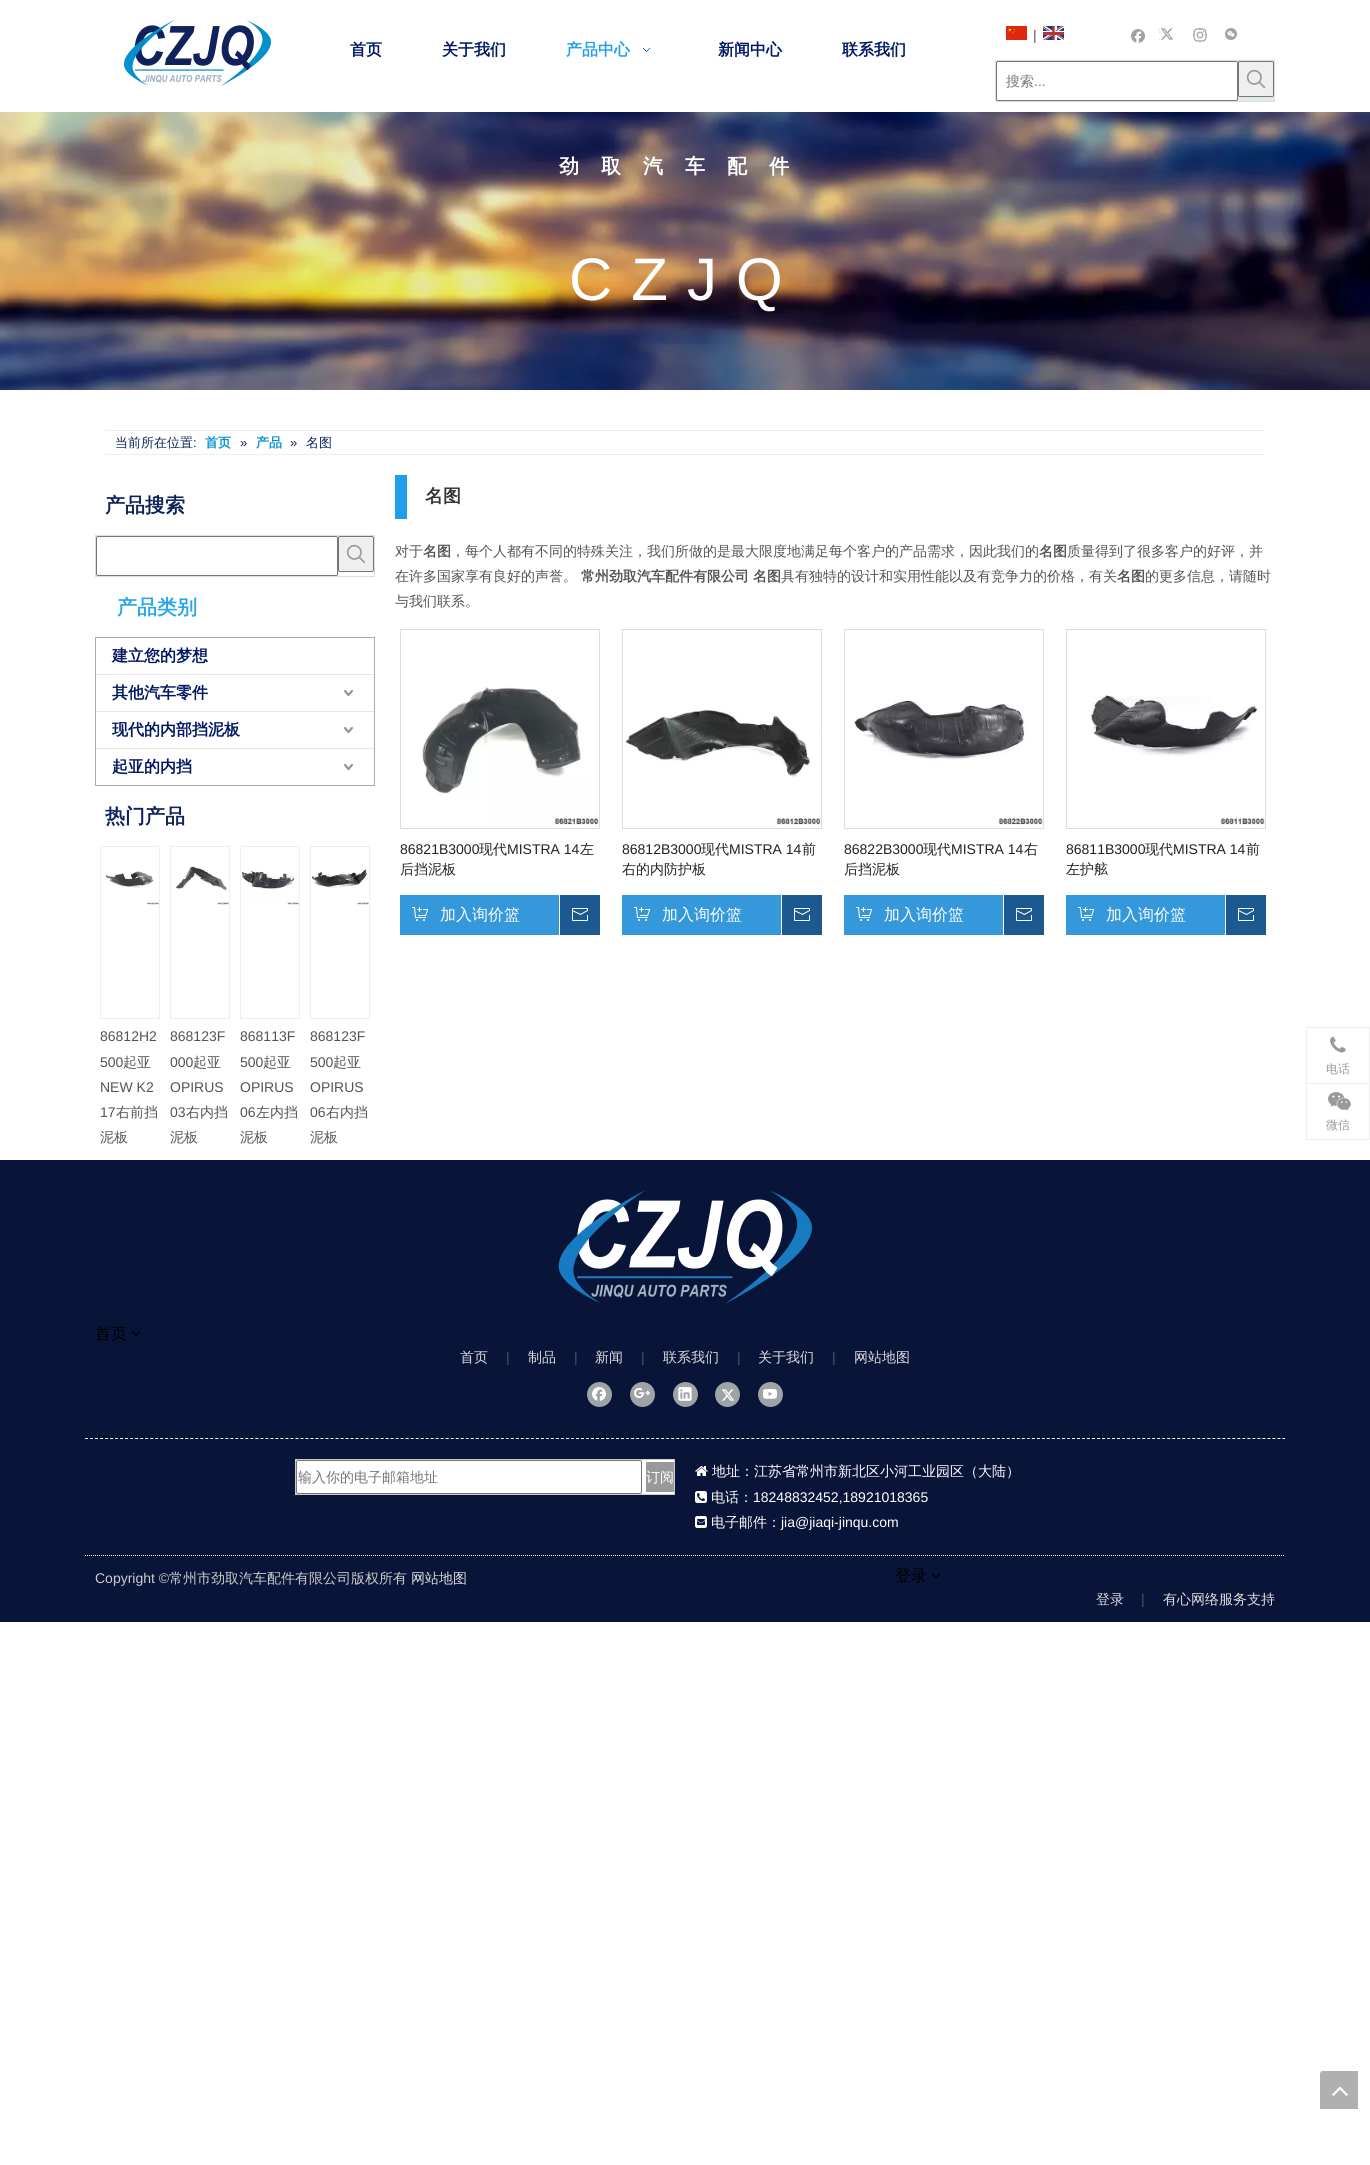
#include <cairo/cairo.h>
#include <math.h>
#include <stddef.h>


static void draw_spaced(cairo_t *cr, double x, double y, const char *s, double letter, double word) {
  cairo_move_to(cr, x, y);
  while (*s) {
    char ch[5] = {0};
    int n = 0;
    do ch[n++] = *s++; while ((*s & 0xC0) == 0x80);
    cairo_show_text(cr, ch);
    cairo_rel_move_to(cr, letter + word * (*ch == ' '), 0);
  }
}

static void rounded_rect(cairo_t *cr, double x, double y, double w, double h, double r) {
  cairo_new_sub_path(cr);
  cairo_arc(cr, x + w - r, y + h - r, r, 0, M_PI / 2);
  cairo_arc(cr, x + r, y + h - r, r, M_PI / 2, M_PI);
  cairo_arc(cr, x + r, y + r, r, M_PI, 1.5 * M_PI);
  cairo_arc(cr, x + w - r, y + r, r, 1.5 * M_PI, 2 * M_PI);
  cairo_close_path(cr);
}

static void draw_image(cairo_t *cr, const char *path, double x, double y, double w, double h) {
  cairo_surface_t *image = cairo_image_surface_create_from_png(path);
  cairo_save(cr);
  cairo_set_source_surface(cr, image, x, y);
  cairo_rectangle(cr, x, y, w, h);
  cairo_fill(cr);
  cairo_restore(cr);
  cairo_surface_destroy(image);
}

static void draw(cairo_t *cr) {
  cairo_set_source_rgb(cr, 1, 1, 1);
  cairo_paint(cr);
  draw_image(cr, "images/1.png", 124, 20, 147, 66);
  draw_image(cr, "images/2.png", 643, 48, 7, 4);
  draw_image(cr, "images/3.png", 1006, 26, 21, 14);
  draw_image(cr, "images/4.png", 1043, 26, 21, 14);
  draw_image(cr, "images/5.png", 1131, 29, 14, 14);
  draw_image(cr, "images/6.png", 1159, 28, 15, 12);
  draw_image(cr, "images/7.png", 1193, 28, 14, 14);
  draw_image(cr, "images/8.png", 1225, 28, 12, 12);
  cairo_set_source_rgb(cr, 227 / 255.0, 234 / 255.0, 238 / 255.0);
  cairo_rectangle(cr, 995.5, 60.5, 279, 41);
  cairo_fill_preserve(cr);
  cairo_set_source_rgb(cr, 221 / 255.0, 221 / 255.0, 221 / 255.0);
  cairo_set_line_width(cr, 1);
  cairo_stroke(cr);
  cairo_set_source_rgb(cr, 1, 1, 1);
  rounded_rect(cr, 996.5, 61.5, 241, 39, 1.5);
  cairo_fill_preserve(cr);
  cairo_set_source_rgb(cr, 118 / 255.0, 118 / 255.0, 118 / 255.0);
  cairo_stroke(cr);
  cairo_set_source_rgb(cr, 239 / 255.0, 239 / 255.0, 239 / 255.0);
  rounded_rect(cr, 1238.5, 61.5, 35, 35, 1.5);
  cairo_fill_preserve(cr);
  cairo_set_source_rgb(cr, 118 / 255.0, 118 / 255.0, 118 / 255.0);
  cairo_stroke(cr);
  draw_image(cr, "images/9.png", 1246, 69, 20, 20);
  draw_image(cr, "images/10.png", 0, 112, 1370, 278);
  cairo_set_source_rgb(cr, 238 / 255.0, 238 / 255.0, 238 / 255.0);
  cairo_rectangle(cr, 105, 430, 1160, 1);
  cairo_fill(cr);
  cairo_rectangle(cr, 105, 454, 1160, 1);
  cairo_fill(cr);
  cairo_rectangle(cr, 95.5, 535.5, 279, 41);
  cairo_set_source_rgb(cr, 221 / 255.0, 221 / 255.0, 221 / 255.0);
  cairo_stroke(cr);
  rounded_rect(cr, 96.5, 536.5, 241, 39, 1.5);
  cairo_set_source_rgb(cr, 118 / 255.0, 118 / 255.0, 118 / 255.0);
  cairo_stroke(cr);
  cairo_set_source_rgb(cr, 239 / 255.0, 239 / 255.0, 239 / 255.0);
  rounded_rect(cr, 338.5, 536.5, 35, 35, 1.5);
  cairo_fill_preserve(cr);
  cairo_set_source_rgb(cr, 118 / 255.0, 118 / 255.0, 118 / 255.0);
  cairo_stroke(cr);
  draw_image(cr, "images/9.png", 346, 544, 20, 20);
  cairo_rectangle(cr, 95.5, 637.5, 279, 148);
  cairo_set_source_rgb(cr, 170 / 255.0, 170 / 255.0, 170 / 255.0);
  cairo_stroke(cr);
  cairo_set_source_rgb(cr, 231 / 255.0, 231 / 255.0, 231 / 255.0);
  cairo_rectangle(cr, 96, 674, 278, 1);
  cairo_fill(cr);
  draw_image(cr, "images/11.png", 344, 690, 9, 6);
  cairo_rectangle(cr, 96, 711, 278, 1);
  cairo_fill(cr);
  draw_image(cr, "images/11.png", 344, 727, 9, 6);
  cairo_rectangle(cr, 96, 748, 278, 1);
  cairo_fill(cr);
  draw_image(cr, "images/11.png", 344, 764, 9, 6);
  cairo_rectangle(cr, 100.5, 846.5, 59, 172);
  cairo_set_source_rgb(cr, 238 / 255.0, 238 / 255.0, 238 / 255.0);
  cairo_stroke(cr);
  draw_image(cr, "images/12.png", 105, 871, 54, 34);
  cairo_rectangle(cr, 170.5, 846.5, 59, 172);
  cairo_stroke(cr);
  draw_image(cr, "images/13.png", 176, 866, 53, 39);
  cairo_rectangle(cr, 240.5, 846.5, 59, 172);
  cairo_stroke(cr);
  draw_image(cr, "images/14.png", 241, 871, 58, 34);
  cairo_rectangle(cr, 310.5, 846.5, 59, 172);
  cairo_stroke(cr);
  draw_image(cr, "images/15.png", 311, 869, 58, 36);
  cairo_set_source_rgb(cr, 32 / 255.0, 158 / 255.0, 234 / 255.0);
  cairo_rectangle(cr, 395, 475, 12, 44);
  cairo_fill(cr);
  cairo_rectangle(cr, 400.5, 629.5, 199, 199);
  cairo_set_source_rgb(cr, 221 / 255.0, 221 / 255.0, 221 / 255.0);
  cairo_stroke(cr);
  draw_image(cr, "images/16.png", 422, 687, 177, 139);
  cairo_set_source_rgb(cr, 52 / 255.0, 152 / 255.0, 219 / 255.0);
  cairo_rectangle(cr, 400, 895, 159, 40);
  cairo_fill(cr);
  draw_image(cr, "images/17.png", 412, 907, 16, 14);
  cairo_set_source_rgb(cr, 29 / 255.0, 89 / 255.0, 145 / 255.0);
  cairo_rectangle(cr, 560, 895, 40, 40);
  cairo_fill(cr);
  draw_image(cr, "images/18.png", 572, 908, 16, 13);
  cairo_rectangle(cr, 622.5, 629.5, 199, 199);
  cairo_set_source_rgb(cr, 221 / 255.0, 221 / 255.0, 221 / 255.0);
  cairo_stroke(cr);
  draw_image(cr, "images/19.png", 625, 710, 196, 116);
  cairo_set_source_rgb(cr, 52 / 255.0, 152 / 255.0, 219 / 255.0);
  cairo_rectangle(cr, 622, 895, 159, 40);
  cairo_fill(cr);
  draw_image(cr, "images/17.png", 634, 907, 16, 14);
  cairo_set_source_rgb(cr, 29 / 255.0, 89 / 255.0, 145 / 255.0);
  cairo_rectangle(cr, 782, 895, 40, 40);
  cairo_fill(cr);
  draw_image(cr, "images/18.png", 794, 908, 16, 13);
  cairo_rectangle(cr, 844.5, 629.5, 199, 199);
  cairo_set_source_rgb(cr, 221 / 255.0, 221 / 255.0, 221 / 255.0);
  cairo_stroke(cr);
  draw_image(cr, "images/20.png", 854, 700, 189, 126);
  cairo_set_source_rgb(cr, 52 / 255.0, 152 / 255.0, 219 / 255.0);
  cairo_rectangle(cr, 844, 895, 159, 40);
  cairo_fill(cr);
  draw_image(cr, "images/17.png", 856, 907, 16, 14);
  cairo_set_source_rgb(cr, 29 / 255.0, 89 / 255.0, 145 / 255.0);
  cairo_rectangle(cr, 1004, 895, 40, 40);
  cairo_fill(cr);
  draw_image(cr, "images/18.png", 1016, 908, 16, 13);
  cairo_rectangle(cr, 1066.5, 629.5, 199, 199);
  cairo_set_source_rgb(cr, 221 / 255.0, 221 / 255.0, 221 / 255.0);
  cairo_stroke(cr);
  draw_image(cr, "images/21.png", 1090, 695, 175, 131);
  cairo_set_source_rgb(cr, 52 / 255.0, 152 / 255.0, 219 / 255.0);
  cairo_rectangle(cr, 1066, 895, 159, 40);
  cairo_fill(cr);
  draw_image(cr, "images/17.png", 1078, 907, 16, 14);
  cairo_set_source_rgb(cr, 29 / 255.0, 89 / 255.0, 145 / 255.0);
  cairo_rectangle(cr, 1226, 895, 40, 40);
  cairo_fill(cr);
  draw_image(cr, "images/18.png", 1238, 908, 16, 13);
  cairo_set_source_rgb(cr, 238 / 255.0, 238 / 255.0, 238 / 255.0);
  cairo_rectangle(cr, 1306, 1027, 64, 1);
  cairo_fill(cr);
  cairo_rectangle(cr, 1369, 1027, 1, 56);
  cairo_fill(cr);
  cairo_rectangle(cr, 1306, 1027, 1, 56);
  cairo_fill(cr);
  draw_image(cr, "images/22.png", 1330, 1036, 16, 17);
  cairo_rectangle(cr, 1306.5, 1083.5, 63, 56);
  cairo_stroke(cr);
  draw_image(cr, "images/23.png", 1328, 1092, 23, 19);
  cairo_set_source_rgb(cr, 9 / 255.0, 20 / 255.0, 57 / 255.0);
  cairo_rectangle(cr, 0, 1160, 1370, 462);
  cairo_fill(cr);
  draw_image(cr, "images/24.png", 558, 1190, 254, 114);
  draw_image(cr, "images/25.png", 131, 1331, 10, 6);
  cairo_set_source_rgb(cr, 158 / 255.0, 163 / 255.0, 167 / 255.0);
  cairo_arc(cr, 599.5, 1394.5, 12.5, 0, 2 * M_PI);
  cairo_fill(cr);
  draw_image(cr, "images/26.png", 592, 1387, 14, 14);
  cairo_arc(cr, 642.5, 1394.5, 12.5, 0, 2 * M_PI);
  cairo_fill(cr);
  draw_image(cr, "images/27.png", 634, 1388, 16, 10);
  cairo_arc(cr, 685.5, 1394.5, 12.5, 0, 2 * M_PI);
  cairo_fill(cr);
  draw_image(cr, "images/28.png", 678, 1387, 14, 14);
  cairo_arc(cr, 727.5, 1394.5, 12.5, 0, 2 * M_PI);
  cairo_fill(cr);
  draw_image(cr, "images/29.png", 721, 1389, 14, 12);
  cairo_arc(cr, 770.5, 1394.5, 12.5, 0, 2 * M_PI);
  cairo_fill(cr);
  draw_image(cr, "images/30.png", 763, 1389, 14, 10);
  cairo_new_path(cr);
  cairo_move_to(cr, 85, 1438.5);
  cairo_line_to(cr, 1285, 1438.5);
  cairo_set_source_rgb(cr, 1, 1, 1);
  cairo_set_dash(cr, (double[]){3, 2.01}, 2, 0);
  cairo_stroke(cr);
  cairo_new_path(cr);
  cairo_move_to(cr, 85, 1555.5);
  cairo_line_to(cr, 1285, 1555.5);
  cairo_set_dash(cr, (double[]){1, 1}, 2, 0);
  cairo_stroke(cr);
  cairo_rectangle(cr, 295.5, 1459.5, 379, 35);
  cairo_fill_preserve(cr);
  cairo_set_source_rgb(cr, 204 / 255.0, 204 / 255.0, 204 / 255.0);
  cairo_set_dash(cr, NULL, 0, 0);
  cairo_stroke(cr);
  rounded_rect(cr, 296.5, 1460.5, 345, 33, 1.5);
  cairo_set_source_rgb(cr, 118 / 255.0, 118 / 255.0, 118 / 255.0);
  cairo_stroke(cr);
  cairo_set_source_rgb(cr, 153 / 255.0, 153 / 255.0, 153 / 255.0);
  cairo_rectangle(cr, 646, 1462, 28, 30);
  cairo_fill(cr);
  draw_image(cr, "images/31.png", 695, 1466, 13, 10);
  draw_image(cr, "images/32.png", 695, 1491, 12, 12);
  draw_image(cr, "images/33.png", 695, 1516, 12, 12);
  draw_image(cr, "images/25.png", 931, 1573, 10, 6);
  draw_image(cr, "images/34.png", 1320, 2071, 38, 38);
  cairo_select_font_face(cr, "WenQuanYi Zen Hei", CAIRO_FONT_SLANT_NORMAL, CAIRO_FONT_WEIGHT_BOLD);
  cairo_set_font_size(cr, 16);
  cairo_set_source_rgb(cr, 0, 23 / 255.0, 99 / 255.0);
  cairo_move_to(cr, 350, 55);
  cairo_show_text(cr, "首页");
  cairo_move_to(cr, 442, 55);
  cairo_show_text(cr, "关于我们");
  cairo_set_source_rgb(cr, 32 / 255.0, 158 / 255.0, 234 / 255.0);
  cairo_move_to(cr, 566, 55);
  cairo_show_text(cr, "产品中心");
  cairo_set_source_rgb(cr, 0, 23 / 255.0, 99 / 255.0);
  cairo_move_to(cr, 718, 55);
  cairo_show_text(cr, "新闻中心");
  cairo_move_to(cr, 842, 55);
  cairo_show_text(cr, "联系我们");
  cairo_select_font_face(cr, "Liberation Sans", CAIRO_FONT_SLANT_NORMAL, CAIRO_FONT_WEIGHT_NORMAL);
  cairo_set_font_size(cr, 14);
  cairo_set_source_rgb(cr, 84 / 255.0, 84 / 255.0, 84 / 255.0);
  cairo_move_to(cr, 1033, 40);
  cairo_show_text(cr, "|");
  cairo_select_font_face(cr, "WenQuanYi Zen Hei Medium", CAIRO_FONT_SLANT_NORMAL, CAIRO_FONT_WEIGHT_NORMAL);
  cairo_set_source_rgb(cr, 117 / 255.0, 117 / 255.0, 117 / 255.0);
  cairo_move_to(cr, 1006, 86);
  cairo_show_text(cr, "搜索");
  cairo_select_font_face(cr, "Liberation Sans", CAIRO_FONT_SLANT_NORMAL, CAIRO_FONT_WEIGHT_NORMAL);
  cairo_move_to(cr, 1034, 86);
  cairo_show_text(cr, "...");
  cairo_select_font_face(cr, "WenQuanYi Zen Hei", CAIRO_FONT_SLANT_NORMAL, CAIRO_FONT_WEIGHT_BOLD);
  cairo_set_font_size(cr, 20);
  cairo_set_source_rgb(cr, 1, 1, 1);
  draw_spaced(cr, 559, 173, "劲取汽车配件", 22, 0);
  cairo_select_font_face(cr, "Liberation Sans", CAIRO_FONT_SLANT_NORMAL, CAIRO_FONT_WEIGHT_NORMAL);
  cairo_set_font_size(cr, 60);
  draw_spaced(cr, 569, 300, "CZJQ", 19, 0);
  cairo_select_font_face(cr, "WenQuanYi Zen Hei Medium", CAIRO_FONT_SLANT_NORMAL, CAIRO_FONT_WEIGHT_NORMAL);
  cairo_set_font_size(cr, 13);
  cairo_set_source_rgb(cr, 15 / 255.0, 34 / 255.0, 91 / 255.0);
  cairo_move_to(cr, 115, 447);
  cairo_show_text(cr, "当前所在位置");
  cairo_select_font_face(cr, "Liberation Sans", CAIRO_FONT_SLANT_NORMAL, CAIRO_FONT_WEIGHT_NORMAL);
  cairo_move_to(cr, 193, 447);
  cairo_show_text(cr, ":");
  cairo_select_font_face(cr, "WenQuanYi Zen Hei", CAIRO_FONT_SLANT_NORMAL, CAIRO_FONT_WEIGHT_BOLD);
  cairo_set_source_rgb(cr, 0, 144 / 255.0, 208 / 255.0);
  cairo_move_to(cr, 205, 447);
  cairo_show_text(cr, "首页");
  cairo_select_font_face(cr, "Liberation Sans", CAIRO_FONT_SLANT_NORMAL, CAIRO_FONT_WEIGHT_NORMAL);
  cairo_set_source_rgb(cr, 15 / 255.0, 34 / 255.0, 91 / 255.0);
  cairo_move_to(cr, 240, 447);
  cairo_show_text(cr, "»");
  cairo_select_font_face(cr, "WenQuanYi Zen Hei", CAIRO_FONT_SLANT_NORMAL, CAIRO_FONT_WEIGHT_BOLD);
  cairo_set_source_rgb(cr, 0, 144 / 255.0, 208 / 255.0);
  cairo_move_to(cr, 256, 447);
  cairo_show_text(cr, "产品");
  cairo_select_font_face(cr, "Liberation Sans", CAIRO_FONT_SLANT_NORMAL, CAIRO_FONT_WEIGHT_NORMAL);
  cairo_set_source_rgb(cr, 15 / 255.0, 34 / 255.0, 91 / 255.0);
  cairo_move_to(cr, 290, 447);
  cairo_show_text(cr, "»");
  cairo_select_font_face(cr, "WenQuanYi Zen Hei Medium", CAIRO_FONT_SLANT_NORMAL, CAIRO_FONT_WEIGHT_NORMAL);
  cairo_move_to(cr, 306, 447);
  cairo_show_text(cr, "名图");
  cairo_select_font_face(cr, "WenQuanYi Zen Hei", CAIRO_FONT_SLANT_NORMAL, CAIRO_FONT_WEIGHT_BOLD);
  cairo_set_font_size(cr, 20);
  cairo_move_to(cr, 105, 512);
  cairo_show_text(cr, "产品搜索");
  cairo_set_source_rgb(cr, 42 / 255.0, 167 / 255.0, 234 / 255.0);
  cairo_move_to(cr, 117, 614);
  cairo_show_text(cr, "产品类别");
  cairo_set_font_size(cr, 16);
  cairo_set_source_rgb(cr, 0, 23 / 255.0, 99 / 255.0);
  cairo_move_to(cr, 112, 661);
  cairo_show_text(cr, "建立您的梦想");
  cairo_move_to(cr, 112, 698);
  cairo_show_text(cr, "其他汽车零件");
  cairo_move_to(cr, 112, 735);
  cairo_show_text(cr, "现代的内部挡泥板");
  cairo_move_to(cr, 112, 772);
  cairo_show_text(cr, "起亚的内挡");
  cairo_set_font_size(cr, 20);
  cairo_set_source_rgb(cr, 15 / 255.0, 34 / 255.0, 91 / 255.0);
  cairo_move_to(cr, 105, 823);
  cairo_show_text(cr, "热门产品");
  cairo_select_font_face(cr, "Liberation Sans", CAIRO_FONT_SLANT_NORMAL, CAIRO_FONT_WEIGHT_NORMAL);
  cairo_set_font_size(cr, 14);
  cairo_set_source_rgb(cr, 84 / 255.0, 84 / 255.0, 84 / 255.0);
  cairo_move_to(cr, 100, 1041);
  cairo_show_text(cr, "86812H2");
  cairo_move_to(cr, 100, 1067);
  cairo_show_text(cr, "500");
  cairo_select_font_face(cr, "WenQuanYi Zen Hei Medium", CAIRO_FONT_SLANT_NORMAL, CAIRO_FONT_WEIGHT_NORMAL);
  cairo_move_to(cr, 123, 1067);
  cairo_show_text(cr, "起亚");
  cairo_select_font_face(cr, "Liberation Sans", CAIRO_FONT_SLANT_NORMAL, CAIRO_FONT_WEIGHT_NORMAL);
  cairo_move_to(cr, 100, 1092);
  cairo_show_text(cr, "NEW K2");
  cairo_move_to(cr, 100, 1117);
  cairo_show_text(cr, "17");
  cairo_select_font_face(cr, "WenQuanYi Zen Hei Medium", CAIRO_FONT_SLANT_NORMAL, CAIRO_FONT_WEIGHT_NORMAL);
  cairo_move_to(cr, 116, 1117);
  cairo_show_text(cr, "右前挡");
  cairo_move_to(cr, 100, 1142);
  cairo_show_text(cr, "泥板");
  cairo_select_font_face(cr, "Liberation Sans", CAIRO_FONT_SLANT_NORMAL, CAIRO_FONT_WEIGHT_NORMAL);
  cairo_move_to(cr, 170, 1041);
  cairo_show_text(cr, "868123F");
  cairo_move_to(cr, 170, 1067);
  cairo_show_text(cr, "000");
  cairo_select_font_face(cr, "WenQuanYi Zen Hei Medium", CAIRO_FONT_SLANT_NORMAL, CAIRO_FONT_WEIGHT_NORMAL);
  cairo_move_to(cr, 193, 1067);
  cairo_show_text(cr, "起亚");
  cairo_select_font_face(cr, "Liberation Sans", CAIRO_FONT_SLANT_NORMAL, CAIRO_FONT_WEIGHT_NORMAL);
  cairo_move_to(cr, 170, 1092);
  cairo_show_text(cr, "OPIRUS");
  cairo_move_to(cr, 170, 1117);
  cairo_show_text(cr, "03");
  cairo_select_font_face(cr, "WenQuanYi Zen Hei Medium", CAIRO_FONT_SLANT_NORMAL, CAIRO_FONT_WEIGHT_NORMAL);
  cairo_move_to(cr, 186, 1117);
  cairo_show_text(cr, "右内挡");
  cairo_move_to(cr, 170, 1142);
  cairo_show_text(cr, "泥板");
  cairo_select_font_face(cr, "Liberation Sans", CAIRO_FONT_SLANT_NORMAL, CAIRO_FONT_WEIGHT_NORMAL);
  cairo_move_to(cr, 240, 1041);
  cairo_show_text(cr, "868113F");
  cairo_move_to(cr, 240, 1067);
  cairo_show_text(cr, "500");
  cairo_select_font_face(cr, "WenQuanYi Zen Hei Medium", CAIRO_FONT_SLANT_NORMAL, CAIRO_FONT_WEIGHT_NORMAL);
  cairo_move_to(cr, 263, 1067);
  cairo_show_text(cr, "起亚");
  cairo_select_font_face(cr, "Liberation Sans", CAIRO_FONT_SLANT_NORMAL, CAIRO_FONT_WEIGHT_NORMAL);
  cairo_move_to(cr, 240, 1092);
  cairo_show_text(cr, "OPIRUS");
  cairo_move_to(cr, 240, 1117);
  cairo_show_text(cr, "06");
  cairo_select_font_face(cr, "WenQuanYi Zen Hei Medium", CAIRO_FONT_SLANT_NORMAL, CAIRO_FONT_WEIGHT_NORMAL);
  cairo_move_to(cr, 256, 1117);
  cairo_show_text(cr, "左内挡");
  cairo_move_to(cr, 240, 1142);
  cairo_show_text(cr, "泥板");
  cairo_select_font_face(cr, "Liberation Sans", CAIRO_FONT_SLANT_NORMAL, CAIRO_FONT_WEIGHT_NORMAL);
  cairo_move_to(cr, 310, 1041);
  cairo_show_text(cr, "868123F");
  cairo_move_to(cr, 310, 1067);
  cairo_show_text(cr, "500");
  cairo_select_font_face(cr, "WenQuanYi Zen Hei Medium", CAIRO_FONT_SLANT_NORMAL, CAIRO_FONT_WEIGHT_NORMAL);
  cairo_move_to(cr, 333, 1067);
  cairo_show_text(cr, "起亚");
  cairo_select_font_face(cr, "Liberation Sans", CAIRO_FONT_SLANT_NORMAL, CAIRO_FONT_WEIGHT_NORMAL);
  cairo_move_to(cr, 310, 1092);
  cairo_show_text(cr, "OPIRUS");
  cairo_move_to(cr, 310, 1117);
  cairo_show_text(cr, "06");
  cairo_select_font_face(cr, "WenQuanYi Zen Hei Medium", CAIRO_FONT_SLANT_NORMAL, CAIRO_FONT_WEIGHT_NORMAL);
  cairo_move_to(cr, 326, 1117);
  cairo_show_text(cr, "右内挡");
  cairo_move_to(cr, 310, 1142);
  cairo_show_text(cr, "泥板");
  cairo_select_font_face(cr, "WenQuanYi Zen Hei", CAIRO_FONT_SLANT_NORMAL, CAIRO_FONT_WEIGHT_BOLD);
  cairo_set_font_size(cr, 18);
  cairo_set_source_rgb(cr, 51 / 255.0, 51 / 255.0, 51 / 255.0);
  cairo_move_to(cr, 425, 502);
  cairo_show_text(cr, "名图");
  cairo_select_font_face(cr, "WenQuanYi Zen Hei Medium", CAIRO_FONT_SLANT_NORMAL, CAIRO_FONT_WEIGHT_NORMAL);
  cairo_set_font_size(cr, 14);
  cairo_set_source_rgb(cr, 84 / 255.0, 84 / 255.0, 84 / 255.0);
  cairo_move_to(cr, 395, 556);
  cairo_show_text(cr, "对于");
  cairo_select_font_face(cr, "WenQuanYi Zen Hei", CAIRO_FONT_SLANT_NORMAL, CAIRO_FONT_WEIGHT_BOLD);
  cairo_move_to(cr, 423, 556);
  cairo_show_text(cr, "名图");
  cairo_select_font_face(cr, "WenQuanYi Zen Hei Medium", CAIRO_FONT_SLANT_NORMAL, CAIRO_FONT_WEIGHT_NORMAL);
  cairo_move_to(cr, 451, 556);
  cairo_show_text(cr, "，每个人都有不同的特殊关注，我们所做的是最大限度地满足每个客户的产品需求，因此我们的");
  cairo_select_font_face(cr, "WenQuanYi Zen Hei", CAIRO_FONT_SLANT_NORMAL, CAIRO_FONT_WEIGHT_BOLD);
  cairo_move_to(cr, 1039, 556);
  cairo_show_text(cr, "名图");
  cairo_select_font_face(cr, "WenQuanYi Zen Hei Medium", CAIRO_FONT_SLANT_NORMAL, CAIRO_FONT_WEIGHT_NORMAL);
  cairo_move_to(cr, 1067, 556);
  cairo_show_text(cr, "质量得到了很多客户的好评，并");
  cairo_move_to(cr, 395, 581);
  cairo_show_text(cr, "在许多国家享有良好的声誉。");
  cairo_select_font_face(cr, "WenQuanYi Zen Hei", CAIRO_FONT_SLANT_NORMAL, CAIRO_FONT_WEIGHT_BOLD);
  cairo_move_to(cr, 581, 581);
  cairo_show_text(cr, "常州劲取汽车配件有限公司");
  cairo_move_to(cr, 753, 581);
  cairo_show_text(cr, "名图");
  cairo_select_font_face(cr, "WenQuanYi Zen Hei Medium", CAIRO_FONT_SLANT_NORMAL, CAIRO_FONT_WEIGHT_NORMAL);
  cairo_move_to(cr, 781, 581);
  cairo_show_text(cr, "具有独特的设计和实用性能以及有竞争力的价格，有关");
  cairo_select_font_face(cr, "WenQuanYi Zen Hei", CAIRO_FONT_SLANT_NORMAL, CAIRO_FONT_WEIGHT_BOLD);
  cairo_move_to(cr, 1117, 581);
  cairo_show_text(cr, "名图");
  cairo_select_font_face(cr, "WenQuanYi Zen Hei Medium", CAIRO_FONT_SLANT_NORMAL, CAIRO_FONT_WEIGHT_NORMAL);
  cairo_move_to(cr, 1145, 581);
  cairo_show_text(cr, "的更多信息，请随时");
  cairo_move_to(cr, 395, 606);
  cairo_show_text(cr, "与我们联系。");
  cairo_select_font_face(cr, "Liberation Sans", CAIRO_FONT_SLANT_NORMAL, CAIRO_FONT_WEIGHT_NORMAL);
  cairo_set_source_rgb(cr, 34 / 255.0, 34 / 255.0, 34 / 255.0);
  cairo_move_to(cr, 400, 854);
  cairo_show_text(cr, "86821B3000");
  cairo_select_font_face(cr, "WenQuanYi Zen Hei Medium", CAIRO_FONT_SLANT_NORMAL, CAIRO_FONT_WEIGHT_NORMAL);
  cairo_move_to(cr, 479, 854);
  cairo_show_text(cr, "现代");
  cairo_select_font_face(cr, "Liberation Sans", CAIRO_FONT_SLANT_NORMAL, CAIRO_FONT_WEIGHT_NORMAL);
  cairo_move_to(cr, 507, 854);
  cairo_show_text(cr, "MISTRA 14");
  cairo_select_font_face(cr, "WenQuanYi Zen Hei Medium", CAIRO_FONT_SLANT_NORMAL, CAIRO_FONT_WEIGHT_NORMAL);
  cairo_move_to(cr, 580, 854);
  cairo_show_text(cr, "左");
  cairo_move_to(cr, 400, 874);
  cairo_show_text(cr, "后挡泥板");
  cairo_set_font_size(cr, 16);
  cairo_set_source_rgb(cr, 1, 1, 1);
  cairo_move_to(cr, 440, 920);
  cairo_show_text(cr, "加入询价篮");
  cairo_select_font_face(cr, "Liberation Sans", CAIRO_FONT_SLANT_NORMAL, CAIRO_FONT_WEIGHT_NORMAL);
  cairo_set_font_size(cr, 14);
  cairo_set_source_rgb(cr, 34 / 255.0, 34 / 255.0, 34 / 255.0);
  cairo_move_to(cr, 622, 854);
  cairo_show_text(cr, "86812B3000");
  cairo_select_font_face(cr, "WenQuanYi Zen Hei Medium", CAIRO_FONT_SLANT_NORMAL, CAIRO_FONT_WEIGHT_NORMAL);
  cairo_move_to(cr, 701, 854);
  cairo_show_text(cr, "现代");
  cairo_select_font_face(cr, "Liberation Sans", CAIRO_FONT_SLANT_NORMAL, CAIRO_FONT_WEIGHT_NORMAL);
  cairo_move_to(cr, 729, 854);
  cairo_show_text(cr, "MISTRA 14");
  cairo_select_font_face(cr, "WenQuanYi Zen Hei Medium", CAIRO_FONT_SLANT_NORMAL, CAIRO_FONT_WEIGHT_NORMAL);
  cairo_move_to(cr, 802, 854);
  cairo_show_text(cr, "前");
  cairo_move_to(cr, 622, 874);
  cairo_show_text(cr, "右的内防护板");
  cairo_set_font_size(cr, 16);
  cairo_set_source_rgb(cr, 1, 1, 1);
  cairo_move_to(cr, 662, 920);
  cairo_show_text(cr, "加入询价篮");
  cairo_select_font_face(cr, "Liberation Sans", CAIRO_FONT_SLANT_NORMAL, CAIRO_FONT_WEIGHT_NORMAL);
  cairo_set_font_size(cr, 14);
  cairo_set_source_rgb(cr, 34 / 255.0, 34 / 255.0, 34 / 255.0);
  cairo_move_to(cr, 844, 854);
  cairo_show_text(cr, "86822B3000");
  cairo_select_font_face(cr, "WenQuanYi Zen Hei Medium", CAIRO_FONT_SLANT_NORMAL, CAIRO_FONT_WEIGHT_NORMAL);
  cairo_move_to(cr, 923, 854);
  cairo_show_text(cr, "现代");
  cairo_select_font_face(cr, "Liberation Sans", CAIRO_FONT_SLANT_NORMAL, CAIRO_FONT_WEIGHT_NORMAL);
  cairo_move_to(cr, 951, 854);
  cairo_show_text(cr, "MISTRA 14");
  cairo_select_font_face(cr, "WenQuanYi Zen Hei Medium", CAIRO_FONT_SLANT_NORMAL, CAIRO_FONT_WEIGHT_NORMAL);
  cairo_move_to(cr, 1024, 854);
  cairo_show_text(cr, "右");
  cairo_move_to(cr, 844, 874);
  cairo_show_text(cr, "后挡泥板");
  cairo_set_font_size(cr, 16);
  cairo_set_source_rgb(cr, 1, 1, 1);
  cairo_move_to(cr, 884, 920);
  cairo_show_text(cr, "加入询价篮");
  cairo_select_font_face(cr, "Liberation Sans", CAIRO_FONT_SLANT_NORMAL, CAIRO_FONT_WEIGHT_NORMAL);
  cairo_set_font_size(cr, 14);
  cairo_set_source_rgb(cr, 34 / 255.0, 34 / 255.0, 34 / 255.0);
  cairo_move_to(cr, 1066, 854);
  cairo_show_text(cr, "86811B3000");
  cairo_select_font_face(cr, "WenQuanYi Zen Hei Medium", CAIRO_FONT_SLANT_NORMAL, CAIRO_FONT_WEIGHT_NORMAL);
  cairo_move_to(cr, 1145, 854);
  cairo_show_text(cr, "现代");
  cairo_select_font_face(cr, "Liberation Sans", CAIRO_FONT_SLANT_NORMAL, CAIRO_FONT_WEIGHT_NORMAL);
  cairo_move_to(cr, 1173, 854);
  cairo_show_text(cr, "MISTRA 14");
  cairo_select_font_face(cr, "WenQuanYi Zen Hei Medium", CAIRO_FONT_SLANT_NORMAL, CAIRO_FONT_WEIGHT_NORMAL);
  cairo_move_to(cr, 1246, 854);
  cairo_show_text(cr, "前");
  cairo_move_to(cr, 1066, 874);
  cairo_show_text(cr, "左护舷");
  cairo_set_font_size(cr, 16);
  cairo_set_source_rgb(cr, 1, 1, 1);
  cairo_move_to(cr, 1106, 920);
  cairo_show_text(cr, "加入询价篮");
  cairo_set_font_size(cr, 12);
  cairo_set_source_rgb(cr, 153 / 255.0, 153 / 255.0, 153 / 255.0);
  cairo_move_to(cr, 1326, 1073);
  cairo_show_text(cr, "电话");
  cairo_move_to(cr, 1326, 1129);
  cairo_show_text(cr, "微信");
  cairo_set_font_size(cr, 16);
  cairo_set_source_rgb(cr, 0, 0, 0);
  cairo_move_to(cr, 95, 1339);
  cairo_show_text(cr, "首页");
  cairo_set_font_size(cr, 14);
  cairo_set_source_rgb(cr, 221 / 255.0, 221 / 255.0, 221 / 255.0);
  cairo_move_to(cr, 460, 1362);
  cairo_show_text(cr, "首页");
  cairo_select_font_face(cr, "Liberation Sans", CAIRO_FONT_SLANT_NORMAL, CAIRO_FONT_WEIGHT_NORMAL);
  cairo_set_source_rgb(cr, 84 / 255.0, 84 / 255.0, 84 / 255.0);
  cairo_move_to(cr, 506, 1362);
  cairo_show_text(cr, "|");
  cairo_select_font_face(cr, "WenQuanYi Zen Hei Medium", CAIRO_FONT_SLANT_NORMAL, CAIRO_FONT_WEIGHT_NORMAL);
  cairo_set_source_rgb(cr, 221 / 255.0, 221 / 255.0, 221 / 255.0);
  cairo_move_to(cr, 528, 1362);
  cairo_show_text(cr, "制品");
  cairo_select_font_face(cr, "Liberation Sans", CAIRO_FONT_SLANT_NORMAL, CAIRO_FONT_WEIGHT_NORMAL);
  cairo_set_source_rgb(cr, 84 / 255.0, 84 / 255.0, 84 / 255.0);
  cairo_move_to(cr, 574, 1362);
  cairo_show_text(cr, "|");
  cairo_select_font_face(cr, "WenQuanYi Zen Hei Medium", CAIRO_FONT_SLANT_NORMAL, CAIRO_FONT_WEIGHT_NORMAL);
  cairo_set_source_rgb(cr, 221 / 255.0, 221 / 255.0, 221 / 255.0);
  cairo_move_to(cr, 595, 1362);
  cairo_show_text(cr, "新闻");
  cairo_select_font_face(cr, "Liberation Sans", CAIRO_FONT_SLANT_NORMAL, CAIRO_FONT_WEIGHT_NORMAL);
  cairo_set_source_rgb(cr, 84 / 255.0, 84 / 255.0, 84 / 255.0);
  cairo_move_to(cr, 641, 1362);
  cairo_show_text(cr, "|");
  cairo_select_font_face(cr, "WenQuanYi Zen Hei Medium", CAIRO_FONT_SLANT_NORMAL, CAIRO_FONT_WEIGHT_NORMAL);
  cairo_set_source_rgb(cr, 221 / 255.0, 221 / 255.0, 221 / 255.0);
  cairo_move_to(cr, 663, 1362);
  cairo_show_text(cr, "联系我们");
  cairo_select_font_face(cr, "Liberation Sans", CAIRO_FONT_SLANT_NORMAL, CAIRO_FONT_WEIGHT_NORMAL);
  cairo_set_source_rgb(cr, 84 / 255.0, 84 / 255.0, 84 / 255.0);
  cairo_move_to(cr, 737, 1362);
  cairo_show_text(cr, "|");
  cairo_select_font_face(cr, "WenQuanYi Zen Hei Medium", CAIRO_FONT_SLANT_NORMAL, CAIRO_FONT_WEIGHT_NORMAL);
  cairo_set_source_rgb(cr, 221 / 255.0, 221 / 255.0, 221 / 255.0);
  cairo_move_to(cr, 758, 1362);
  cairo_show_text(cr, "关于我们");
  cairo_select_font_face(cr, "Liberation Sans", CAIRO_FONT_SLANT_NORMAL, CAIRO_FONT_WEIGHT_NORMAL);
  cairo_set_source_rgb(cr, 84 / 255.0, 84 / 255.0, 84 / 255.0);
  cairo_move_to(cr, 832, 1362);
  cairo_show_text(cr, "|");
  cairo_select_font_face(cr, "WenQuanYi Zen Hei Medium", CAIRO_FONT_SLANT_NORMAL, CAIRO_FONT_WEIGHT_NORMAL);
  cairo_set_source_rgb(cr, 221 / 255.0, 221 / 255.0, 221 / 255.0);
  cairo_move_to(cr, 854, 1362);
  cairo_show_text(cr, "网站地图");
  cairo_set_source_rgb(cr, 117 / 255.0, 117 / 255.0, 117 / 255.0);
  cairo_move_to(cr, 298, 1482);
  cairo_show_text(cr, "输入你的电子邮箱地址");
  cairo_set_source_rgb(cr, 1, 1, 1);
  cairo_move_to(cr, 646, 1482);
  cairo_show_text(cr, "订阅");
  cairo_move_to(cr, 712, 1476);
  cairo_show_text(cr, "地址：江苏省常州市新北区小河工业园区（大陆）");
  cairo_move_to(cr, 711, 1502);
  cairo_show_text(cr, "电话：");
  cairo_select_font_face(cr, "Liberation Sans", CAIRO_FONT_SLANT_NORMAL, CAIRO_FONT_WEIGHT_NORMAL);
  cairo_move_to(cr, 753, 1502);
  cairo_show_text(cr, "18248832452,18921018365");
  cairo_select_font_face(cr, "WenQuanYi Zen Hei Medium", CAIRO_FONT_SLANT_NORMAL, CAIRO_FONT_WEIGHT_NORMAL);
  cairo_move_to(cr, 711, 1527);
  cairo_show_text(cr, "电子邮件：");
  cairo_select_font_face(cr, "Liberation Sans", CAIRO_FONT_SLANT_NORMAL, CAIRO_FONT_WEIGHT_NORMAL);
  cairo_move_to(cr, 781, 1527);
  cairo_show_text(cr, "jia@jiaqi-jinqu.com");
  cairo_set_source_rgb(cr, 204 / 255.0, 204 / 255.0, 204 / 255.0);
  cairo_move_to(cr, 95, 1583);
  cairo_show_text(cr, "Copyright ©");
  cairo_select_font_face(cr, "WenQuanYi Zen Hei Medium", CAIRO_FONT_SLANT_NORMAL, CAIRO_FONT_WEIGHT_NORMAL);
  cairo_move_to(cr, 169, 1583);
  cairo_show_text(cr, "常州市劲取汽车配件有限公司版权所有");
  cairo_set_source_rgb(cr, 221 / 255.0, 221 / 255.0, 221 / 255.0);
  cairo_move_to(cr, 411, 1583);
  cairo_show_text(cr, "网站地图");
  cairo_set_font_size(cr, 16);
  cairo_set_source_rgb(cr, 0, 0, 0);
  cairo_move_to(cr, 895, 1581);
  cairo_show_text(cr, "登录");
  cairo_set_font_size(cr, 14);
  cairo_set_source_rgb(cr, 221 / 255.0, 221 / 255.0, 221 / 255.0);
  cairo_move_to(cr, 1096, 1604);
  cairo_show_text(cr, "登录");
  cairo_select_font_face(cr, "Liberation Sans", CAIRO_FONT_SLANT_NORMAL, CAIRO_FONT_WEIGHT_NORMAL);
  cairo_set_source_rgb(cr, 84 / 255.0, 84 / 255.0, 84 / 255.0);
  cairo_move_to(cr, 1141, 1604);
  cairo_show_text(cr, "|");
  cairo_select_font_face(cr, "WenQuanYi Zen Hei Medium", CAIRO_FONT_SLANT_NORMAL, CAIRO_FONT_WEIGHT_NORMAL);
  cairo_set_source_rgb(cr, 221 / 255.0, 221 / 255.0, 221 / 255.0);
  cairo_move_to(cr, 1163, 1604);
  cairo_show_text(cr, "有心网络服务支持");
}

int main(void) {
  cairo_surface_t *surface = cairo_image_surface_create(CAIRO_FORMAT_RGB24, 1370, 2165);
  cairo_t *cr = cairo_create(surface);
  cairo_font_options_t *options = cairo_font_options_create();
  cairo_font_options_set_hint_metrics(options, CAIRO_HINT_METRICS_OFF);
  cairo_font_options_set_hint_style(options, CAIRO_HINT_STYLE_NONE);
  cairo_set_font_options(cr, options);
  cairo_set_miter_limit(cr, 4);
  draw(cr);
  cairo_surface_write_to_png(surface, "out.png");
  cairo_font_options_destroy(options);
  cairo_destroy(cr);
  cairo_surface_destroy(surface);
  return 0;
}
